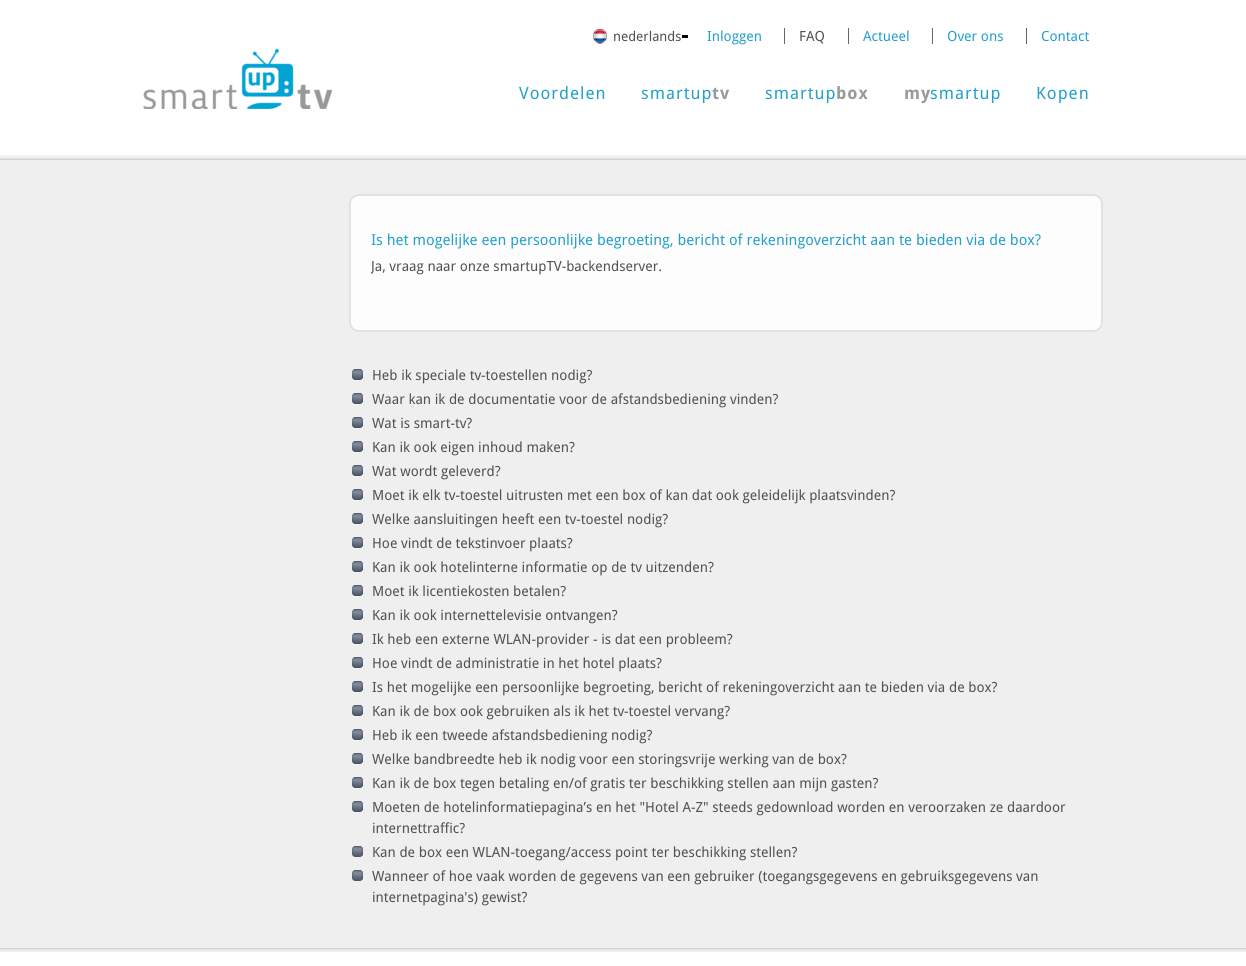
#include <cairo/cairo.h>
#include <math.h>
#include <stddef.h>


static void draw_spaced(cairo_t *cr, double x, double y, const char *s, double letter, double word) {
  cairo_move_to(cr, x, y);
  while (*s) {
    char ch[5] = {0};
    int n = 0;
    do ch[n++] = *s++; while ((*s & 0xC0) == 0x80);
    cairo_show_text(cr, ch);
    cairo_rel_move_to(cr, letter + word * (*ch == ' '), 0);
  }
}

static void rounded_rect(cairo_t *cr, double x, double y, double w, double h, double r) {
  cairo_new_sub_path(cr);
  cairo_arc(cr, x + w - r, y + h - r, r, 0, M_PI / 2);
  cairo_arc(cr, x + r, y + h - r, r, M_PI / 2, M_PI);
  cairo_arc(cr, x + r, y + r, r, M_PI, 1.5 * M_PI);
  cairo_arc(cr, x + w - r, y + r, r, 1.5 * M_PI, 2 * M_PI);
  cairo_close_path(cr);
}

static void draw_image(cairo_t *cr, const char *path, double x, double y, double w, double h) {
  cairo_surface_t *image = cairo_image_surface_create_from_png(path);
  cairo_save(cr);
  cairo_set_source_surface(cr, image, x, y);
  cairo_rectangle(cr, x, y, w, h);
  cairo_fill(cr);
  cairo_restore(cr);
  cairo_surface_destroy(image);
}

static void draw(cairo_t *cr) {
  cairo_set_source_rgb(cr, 239 / 255.0, 239 / 255.0, 239 / 255.0);
  cairo_paint(cr);
  draw_image(cr, "images/1.png", 0, 0, 1246, 160);
  cairo_set_source_rgb(cr, 0, 0, 0);
  cairo_rectangle(cr, 682, 35, 6, 3);
  cairo_fill(cr);
  draw_image(cr, "images/2.png", 593, 29, 14, 15);
  cairo_set_source_rgb(cr, 102 / 255.0, 102 / 255.0, 102 / 255.0);
  cairo_rectangle(cr, 784, 28, 1, 16);
  cairo_fill(cr);
  cairo_rectangle(cr, 848, 28, 1, 16);
  cairo_fill(cr);
  cairo_rectangle(cr, 932, 28, 1, 16);
  cairo_fill(cr);
  cairo_rectangle(cr, 1026, 28, 1, 16);
  cairo_fill(cr);
  draw_image(cr, "images/3.png", 143, 48, 189, 61);
  cairo_set_source_rgb(cr, 253 / 255.0, 253 / 255.0, 253 / 255.0);
  rounded_rect(cr, 350, 195, 752, 136, 9);
  cairo_fill_preserve(cr);
  cairo_set_source_rgb(cr, 223 / 255.0, 227 / 255.0, 230 / 255.0);
  cairo_stroke(cr);
  draw_image(cr, "images/4.png", 352, 369, 11, 11);
  draw_image(cr, "images/4.png", 352, 393, 11, 11);
  draw_image(cr, "images/4.png", 352, 417, 11, 11);
  draw_image(cr, "images/4.png", 352, 441, 11, 11);
  draw_image(cr, "images/4.png", 352, 465, 11, 11);
  draw_image(cr, "images/4.png", 352, 489, 11, 11);
  draw_image(cr, "images/4.png", 352, 513, 11, 11);
  draw_image(cr, "images/4.png", 352, 537, 11, 11);
  draw_image(cr, "images/4.png", 352, 561, 11, 11);
  draw_image(cr, "images/4.png", 352, 585, 11, 11);
  draw_image(cr, "images/4.png", 352, 609, 11, 11);
  draw_image(cr, "images/4.png", 352, 633, 11, 11);
  draw_image(cr, "images/4.png", 352, 657, 11, 11);
  draw_image(cr, "images/4.png", 352, 681, 11, 11);
  draw_image(cr, "images/4.png", 352, 705, 11, 11);
  draw_image(cr, "images/4.png", 352, 729, 11, 11);
  draw_image(cr, "images/4.png", 352, 753, 11, 11);
  draw_image(cr, "images/4.png", 352, 777, 11, 11);
  draw_image(cr, "images/4.png", 352, 801, 11, 11);
  draw_image(cr, "images/4.png", 352, 846, 11, 11);
  draw_image(cr, "images/4.png", 352, 870, 11, 11);
  cairo_set_source_rgb(cr, 1, 1, 1);
  cairo_rectangle(cr, 0, 952, 1246, 14);
  cairo_fill(cr);
  draw_image(cr, "images/5.png", 0, 948, 1246, 4);
  cairo_select_font_face(cr, "Droid Sans", CAIRO_FONT_SLANT_NORMAL, CAIRO_FONT_WEIGHT_NORMAL);
  cairo_set_font_size(cr, 13.5);
  cairo_set_source_rgb(cr, 82 / 255.0, 82 / 255.0, 82 / 255.0);
  cairo_move_to(cr, 613, 41);
  cairo_show_text(cr, "nederlands");
  cairo_set_font_size(cr, 14);
  cairo_set_source_rgb(cr, 37 / 255.0, 160 / 255.0, 204 / 255.0);
  cairo_move_to(cr, 707, 41);
  cairo_show_text(cr, "Inloggen");
  cairo_set_source_rgb(cr, 82 / 255.0, 82 / 255.0, 82 / 255.0);
  cairo_move_to(cr, 799, 41);
  cairo_show_text(cr, "FAQ");
  cairo_set_source_rgb(cr, 37 / 255.0, 160 / 255.0, 204 / 255.0);
  cairo_move_to(cr, 863, 41);
  cairo_show_text(cr, "Actueel");
  cairo_move_to(cr, 947, 41);
  cairo_show_text(cr, "Over ons");
  cairo_move_to(cr, 1041, 41);
  cairo_show_text(cr, "Contact");
  cairo_set_font_size(cr, 17);
  draw_spaced(cr, 519, 99, "Voordelen", 1, 0);
  draw_spaced(cr, 641, 99, "smartup", 1, 0);
  cairo_select_font_face(cr, "Droid Sans", CAIRO_FONT_SLANT_NORMAL, CAIRO_FONT_WEIGHT_BOLD);
  cairo_set_source_rgb(cr, 152 / 255.0, 153 / 255.0, 153 / 255.0);
  draw_spaced(cr, 712, 99, "tv", 1, 0);
  cairo_select_font_face(cr, "Droid Sans", CAIRO_FONT_SLANT_NORMAL, CAIRO_FONT_WEIGHT_NORMAL);
  cairo_set_source_rgb(cr, 37 / 255.0, 160 / 255.0, 204 / 255.0);
  draw_spaced(cr, 765, 99, "smartup", 1, 0);
  cairo_select_font_face(cr, "Droid Sans", CAIRO_FONT_SLANT_NORMAL, CAIRO_FONT_WEIGHT_BOLD);
  cairo_set_source_rgb(cr, 152 / 255.0, 153 / 255.0, 153 / 255.0);
  draw_spaced(cr, 836, 99, "box", 1, 0);
  draw_spaced(cr, 904, 99, "my", 1, 0);
  cairo_select_font_face(cr, "Droid Sans", CAIRO_FONT_SLANT_NORMAL, CAIRO_FONT_WEIGHT_NORMAL);
  cairo_set_source_rgb(cr, 37 / 255.0, 160 / 255.0, 204 / 255.0);
  draw_spaced(cr, 930, 99, "smartup", 1, 0);
  draw_spaced(cr, 1036, 99, "Kopen", 1, 0);
  cairo_set_font_size(cr, 15);
  cairo_move_to(cr, 371, 245);
  cairo_show_text(cr, "Is het mogelijke een persoonlijke begroeting, bericht of rekeningoverzicht aan te bieden via de box?");
  cairo_save(cr);
  cairo_rectangle(cr, 371, 257, 710, 53);
  cairo_clip(cr);
  cairo_set_font_size(cr, 14);
  cairo_set_source_rgb(cr, 82 / 255.0, 82 / 255.0, 82 / 255.0);
  cairo_move_to(cr, 371, 271);
  cairo_show_text(cr, "Ja, vraag naar onze smartupTV-backendserver.");
  cairo_restore(cr);
  cairo_set_font_size(cr, 14);
  cairo_set_source_rgb(cr, 82 / 255.0, 82 / 255.0, 82 / 255.0);
  cairo_move_to(cr, 372, 380);
  cairo_show_text(cr, "Heb ik speciale tv-toestellen nodig?");
  cairo_move_to(cr, 372, 404);
  cairo_show_text(cr, "Waar kan ik de documentatie voor de afstandsbediening vinden?");
  cairo_move_to(cr, 372, 428);
  cairo_show_text(cr, "Wat is smart-tv?");
  cairo_move_to(cr, 372, 452);
  cairo_show_text(cr, "Kan ik ook eigen inhoud maken?");
  cairo_move_to(cr, 372, 476);
  cairo_show_text(cr, "Wat wordt geleverd?");
  cairo_move_to(cr, 372, 500);
  cairo_show_text(cr, "Moet ik elk tv-toestel uitrusten met een box of kan dat ook geleidelijk plaatsvinden?");
  cairo_move_to(cr, 372, 524);
  cairo_show_text(cr, "Welke aansluitingen heeft een tv-toestel nodig?");
  cairo_move_to(cr, 372, 548);
  cairo_show_text(cr, "Hoe vindt de tekstinvoer plaats?");
  cairo_move_to(cr, 372, 572);
  cairo_show_text(cr, "Kan ik ook hotelinterne informatie op de tv uitzenden?");
  cairo_move_to(cr, 372, 596);
  cairo_show_text(cr, "Moet ik licentiekosten betalen?");
  cairo_move_to(cr, 372, 620);
  cairo_show_text(cr, "Kan ik ook internettelevisie ontvangen?");
  cairo_move_to(cr, 372, 644);
  cairo_show_text(cr, "Ik heb een externe WLAN-provider - is dat een probleem?");
  cairo_move_to(cr, 372, 668);
  cairo_show_text(cr, "Hoe vindt de administratie in het hotel plaats?");
  cairo_move_to(cr, 372, 692);
  cairo_show_text(cr, "Is het mogelijke een persoonlijke begroeting, bericht of rekeningoverzicht aan te bieden via de box?");
  cairo_move_to(cr, 372, 716);
  cairo_show_text(cr, "Kan ik de box ook gebruiken als ik het tv-toestel vervang?");
  cairo_move_to(cr, 372, 740);
  cairo_show_text(cr, "Heb ik een tweede afstandsbediening nodig?");
  cairo_move_to(cr, 372, 764);
  cairo_show_text(cr, "Welke bandbreedte heb ik nodig voor een storingsvrije werking van de box?");
  cairo_move_to(cr, 372, 788);
  cairo_show_text(cr, "Kan ik de box tegen betaling en/of gratis ter beschikking stellen aan mijn gasten?");
  cairo_move_to(cr, 372, 812);
  cairo_show_text(cr, "Moeten de hotelinformatiepagina’s en het \"Hotel A-Z\" steeds gedownload worden en veroorzaken ze daardoor");
  cairo_move_to(cr, 372, 833);
  cairo_show_text(cr, "internettraffic?");
  cairo_move_to(cr, 372, 857);
  cairo_show_text(cr, "Kan de box een WLAN-toegang/access point ter beschikking stellen?");
  cairo_move_to(cr, 372, 881);
  cairo_show_text(cr, "Wanneer of hoe vaak worden de gegevens van een gebruiker (toegangsgegevens en gebruiksgegevens van");
  cairo_move_to(cr, 372, 902);
  cairo_show_text(cr, "internetpagina's) gewist?");
}

int main(void) {
  cairo_surface_t *surface = cairo_image_surface_create(CAIRO_FORMAT_RGB24, 1246, 966);
  cairo_t *cr = cairo_create(surface);
  cairo_font_options_t *options = cairo_font_options_create();
  cairo_font_options_set_hint_metrics(options, CAIRO_HINT_METRICS_OFF);
  cairo_font_options_set_hint_style(options, CAIRO_HINT_STYLE_NONE);
  cairo_set_font_options(cr, options);
  cairo_set_miter_limit(cr, 4);
  draw(cr);
  cairo_surface_write_to_png(surface, "out.png");
  cairo_font_options_destroy(options);
  cairo_destroy(cr);
  cairo_surface_destroy(surface);
  return 0;
}
